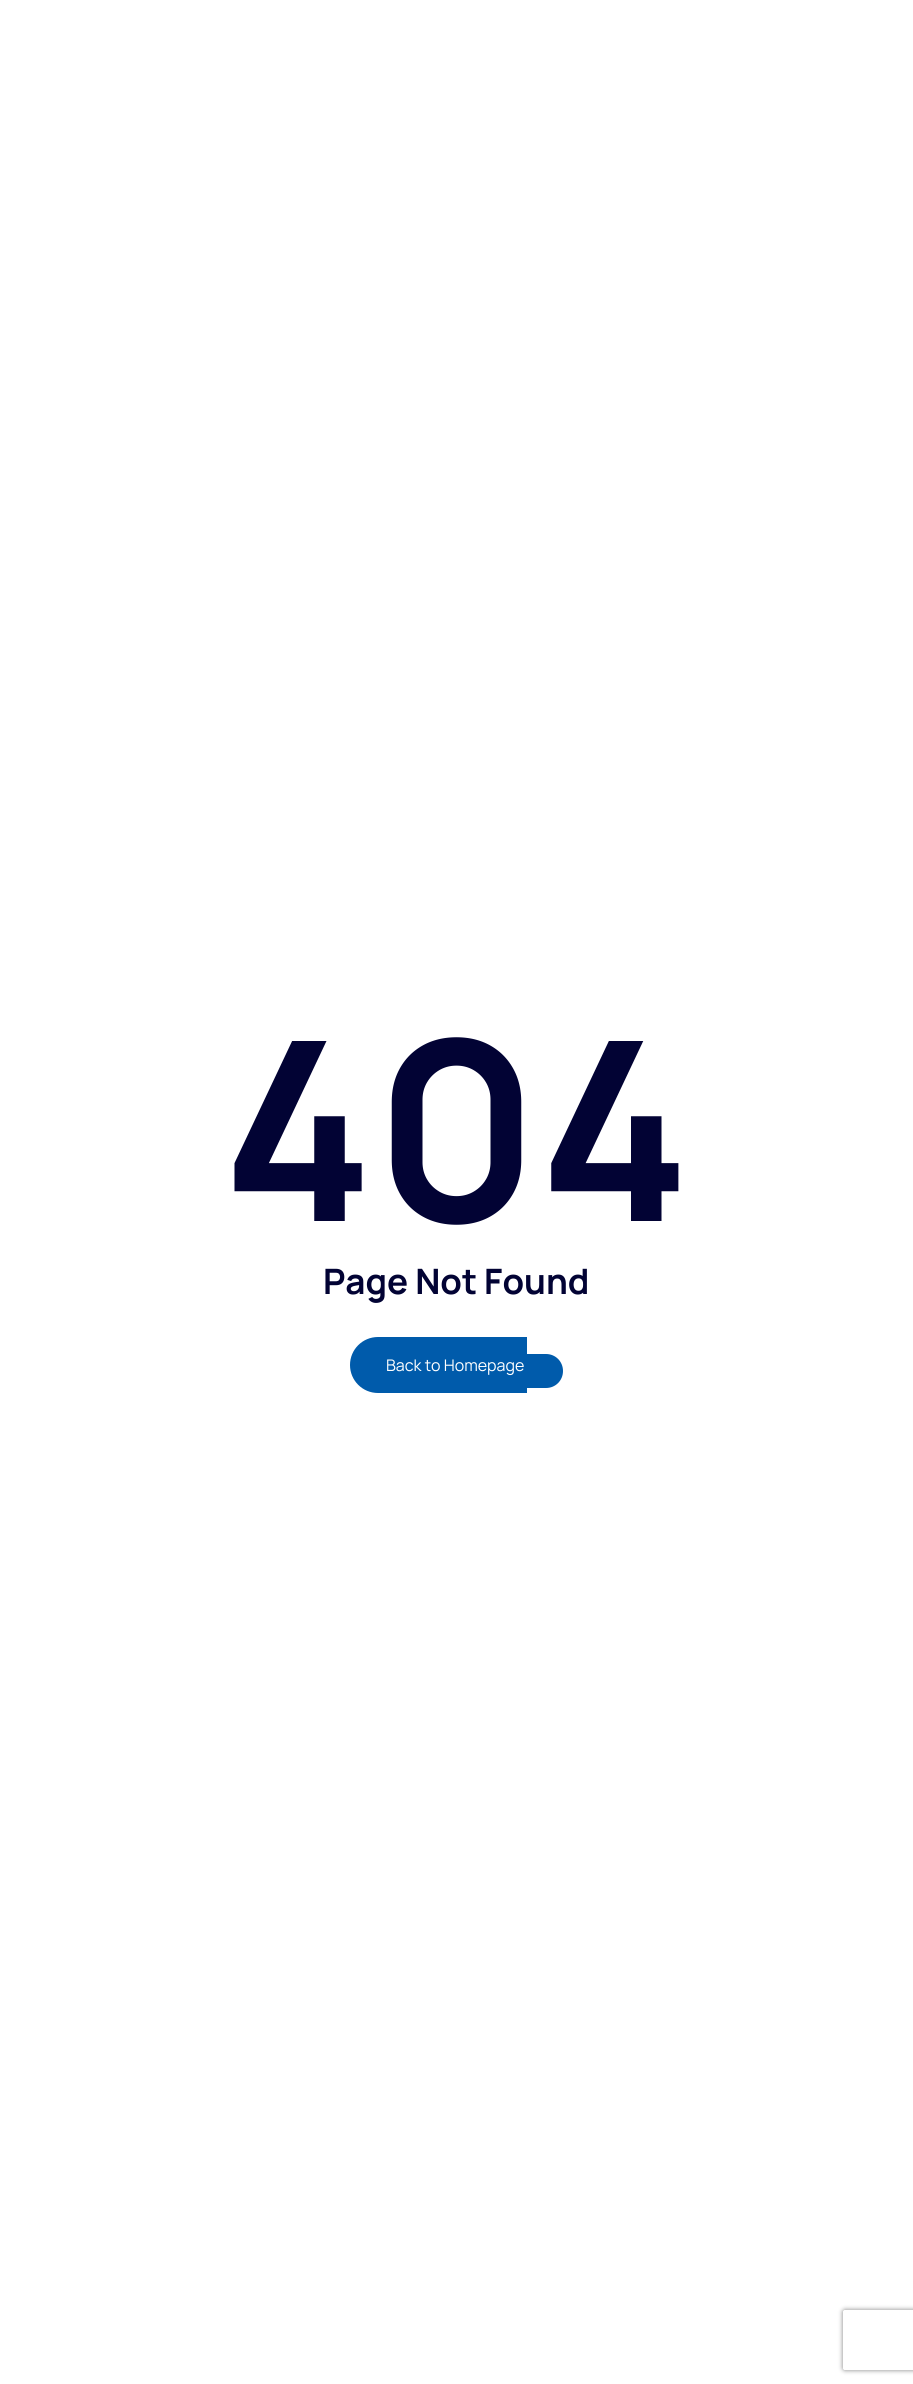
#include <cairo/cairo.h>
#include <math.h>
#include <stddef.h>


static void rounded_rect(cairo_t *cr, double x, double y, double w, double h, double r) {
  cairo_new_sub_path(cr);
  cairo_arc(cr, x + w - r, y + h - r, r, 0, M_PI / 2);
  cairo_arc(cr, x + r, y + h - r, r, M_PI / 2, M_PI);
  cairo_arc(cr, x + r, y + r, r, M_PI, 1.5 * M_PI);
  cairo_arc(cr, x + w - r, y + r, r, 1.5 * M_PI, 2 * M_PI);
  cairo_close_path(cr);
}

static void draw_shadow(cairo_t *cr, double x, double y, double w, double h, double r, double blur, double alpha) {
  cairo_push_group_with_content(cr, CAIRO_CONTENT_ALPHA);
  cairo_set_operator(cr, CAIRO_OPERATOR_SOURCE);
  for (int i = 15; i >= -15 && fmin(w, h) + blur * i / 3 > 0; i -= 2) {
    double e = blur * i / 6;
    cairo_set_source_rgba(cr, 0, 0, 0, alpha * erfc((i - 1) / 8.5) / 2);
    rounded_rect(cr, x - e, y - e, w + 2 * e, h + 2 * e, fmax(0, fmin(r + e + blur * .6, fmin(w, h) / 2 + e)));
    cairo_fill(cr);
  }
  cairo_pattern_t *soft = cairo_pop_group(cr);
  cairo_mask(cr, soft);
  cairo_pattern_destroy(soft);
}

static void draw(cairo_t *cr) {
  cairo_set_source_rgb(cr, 1, 1, 1);
  cairo_paint(cr);
  cairo_set_source_rgb(cr, 0, 91 / 255.0, 171 / 255.0);
  cairo_new_path(cr);
  cairo_move_to(cr, 378, 1337);
  cairo_line_to(cr, 527, 1337);
  cairo_line_to(cr, 527, 1393);
  cairo_line_to(cr, 378, 1393);
  cairo_curve_to(cr, 362.5, 1393, 350, 1380.5, 350, 1365);
  cairo_curve_to(cr, 350, 1349.5, 362.5, 1337, 378, 1337);
  cairo_close_path(cr);
  cairo_fill(cr);
  cairo_new_path(cr);
  cairo_move_to(cr, 527, 1354);
  cairo_line_to(cr, 546, 1354);
  cairo_curve_to(cr, 555.5, 1354, 563, 1361.5, 563, 1371);
  cairo_curve_to(cr, 563, 1380.5, 555.5, 1388, 546, 1388);
  cairo_line_to(cr, 527, 1388);
  cairo_close_path(cr);
  cairo_fill(cr);
  cairo_save(cr);
  cairo_set_fill_rule(cr, CAIRO_FILL_RULE_EVEN_ODD);
  cairo_new_path(cr);
  cairo_move_to(cr, 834, 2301);
  cairo_line_to(cr, 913, 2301);
  cairo_line_to(cr, 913, 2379);
  cairo_line_to(cr, 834, 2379);
  cairo_close_path(cr);
  cairo_move_to(cr, 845, 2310);
  cairo_line_to(cr, 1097, 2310);
  cairo_curve_to(cr, 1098, 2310, 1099, 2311, 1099, 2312);
  cairo_line_to(cr, 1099, 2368);
  cairo_curve_to(cr, 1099, 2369, 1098, 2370, 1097, 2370);
  cairo_line_to(cr, 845, 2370);
  cairo_curve_to(cr, 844, 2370, 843, 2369, 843, 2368);
  cairo_line_to(cr, 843, 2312);
  cairo_curve_to(cr, 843, 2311, 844, 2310, 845, 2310);
  cairo_close_path(cr);
  cairo_clip(cr);
  cairo_set_source_rgb(cr, 128 / 255.0, 128 / 255.0, 128 / 255.0);
  draw_shadow(cr, 843, 2310, 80, 60, 2, 2.5, 1);
  cairo_restore(cr);
  cairo_select_font_face(cr, "Manrope", CAIRO_FONT_SLANT_NORMAL, CAIRO_FONT_WEIGHT_BOLD);
  cairo_set_font_size(cr, 250);
  cairo_set_source_rgb(cr, 2 / 255.0, 3 / 255.0, 52 / 255.0);
  cairo_move_to(cr, 222, 1221);
  cairo_show_text(cr, "404");
  cairo_set_font_size(cr, 35);
  cairo_move_to(cr, 323, 1294);
  cairo_show_text(cr, "Page Not Found");
  cairo_select_font_face(cr, "Manrope ExtraLight", CAIRO_FONT_SLANT_NORMAL, CAIRO_FONT_WEIGHT_NORMAL);
  cairo_set_font_size(cr, 16);
  cairo_set_source_rgb(cr, 1, 1, 1);
  cairo_move_to(cr, 386, 1371);
  cairo_show_text(cr, "Back to Homepage");
}

int main(void) {
  cairo_surface_t *surface = cairo_image_surface_create(CAIRO_FORMAT_RGB24, 913, 2384);
  cairo_t *cr = cairo_create(surface);
  cairo_font_options_t *options = cairo_font_options_create();
  cairo_font_options_set_hint_metrics(options, CAIRO_HINT_METRICS_OFF);
  cairo_font_options_set_hint_style(options, CAIRO_HINT_STYLE_NONE);
  cairo_set_font_options(cr, options);
  cairo_set_miter_limit(cr, 4);
  draw(cr);
  cairo_surface_write_to_png(surface, "out.png");
  cairo_font_options_destroy(options);
  cairo_destroy(cr);
  cairo_surface_destroy(surface);
  return 0;
}
